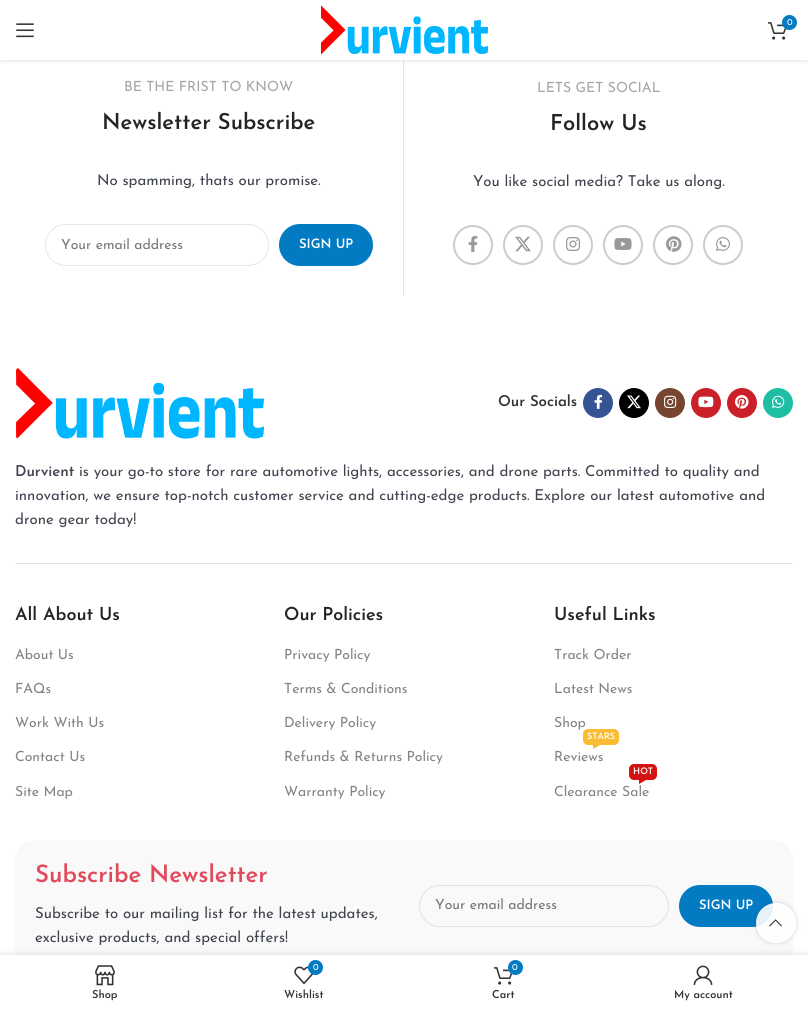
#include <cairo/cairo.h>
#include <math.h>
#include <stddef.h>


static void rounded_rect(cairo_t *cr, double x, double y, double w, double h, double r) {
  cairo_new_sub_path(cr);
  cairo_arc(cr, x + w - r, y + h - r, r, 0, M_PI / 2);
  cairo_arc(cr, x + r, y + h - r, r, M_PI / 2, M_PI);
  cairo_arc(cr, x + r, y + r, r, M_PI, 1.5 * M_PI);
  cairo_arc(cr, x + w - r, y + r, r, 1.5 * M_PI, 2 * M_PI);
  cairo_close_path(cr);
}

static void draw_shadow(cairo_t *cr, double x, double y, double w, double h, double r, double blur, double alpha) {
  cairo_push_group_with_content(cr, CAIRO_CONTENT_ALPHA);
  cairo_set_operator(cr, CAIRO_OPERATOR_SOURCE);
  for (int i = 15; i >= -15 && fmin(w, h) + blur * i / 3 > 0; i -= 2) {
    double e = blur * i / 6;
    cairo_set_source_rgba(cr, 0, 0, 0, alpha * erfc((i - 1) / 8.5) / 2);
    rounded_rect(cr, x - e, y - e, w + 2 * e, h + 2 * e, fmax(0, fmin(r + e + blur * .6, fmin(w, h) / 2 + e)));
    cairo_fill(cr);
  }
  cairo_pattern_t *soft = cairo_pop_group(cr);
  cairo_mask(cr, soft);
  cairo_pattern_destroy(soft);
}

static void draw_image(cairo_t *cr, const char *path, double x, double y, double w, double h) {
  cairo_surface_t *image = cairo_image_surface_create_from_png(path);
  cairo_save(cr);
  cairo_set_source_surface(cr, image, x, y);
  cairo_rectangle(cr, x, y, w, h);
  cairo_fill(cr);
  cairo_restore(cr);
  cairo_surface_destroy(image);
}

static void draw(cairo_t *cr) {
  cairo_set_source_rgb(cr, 1, 1, 1);
  cairo_paint(cr);
  cairo_set_source_rgb(cr, 230 / 255.0, 230 / 255.0, 230 / 255.0);
  cairo_rectangle(cr, 403, 60, 1, 236);
  cairo_fill(cr);
  cairo_set_source_rgb(cr, 0, 0, 0);
  draw_shadow(cr, 0, 1, 808, 60, 0, 1.5, 0.1);
  cairo_set_source_rgb(cr, 1, 1, 1);
  cairo_rectangle(cr, 0, 0, 808, 60);
  cairo_fill(cr);
  draw_image(cr, "images/1.png", 321, 5, 167, 50);
  draw_image(cr, "images/2.png", 768, 22, 19, 18);
  cairo_set_source_rgb(cr, 2 / 255.0, 123 / 255.0, 195 / 255.0);
  cairo_arc(cr, 789.5, 22.5, 7.5, 0, 2 * M_PI);
  cairo_fill(cr);
  draw_image(cr, "images/3.png", 16, 23, 18, 15);
  rounded_rect(cr, 45.5, 224.5, 223, 41, 20.5);
  cairo_set_source_rgb(cr, 230 / 255.0, 230 / 255.0, 230 / 255.0);
  cairo_set_line_width(cr, 1);
  cairo_stroke(cr);
  cairo_set_source_rgb(cr, 2 / 255.0, 123 / 255.0, 195 / 255.0);
  rounded_rect(cr, 279, 224, 94, 42, 21);
  cairo_fill(cr);
  cairo_arc(cr, 473, 245, 19, 0, 2 * M_PI);
  cairo_set_source_rgb(cr, 204 / 255.0, 204 / 255.0, 204 / 255.0);
  cairo_set_line_width(cr, 2);
  cairo_stroke(cr);
  draw_image(cr, "images/4.png", 468, 236, 10, 16);
  cairo_arc(cr, 523, 245, 19, 0, 2 * M_PI);
  cairo_stroke(cr);
  draw_image(cr, "images/5.png", 515, 236, 16, 16);
  cairo_arc(cr, 573, 245, 19, 0, 2 * M_PI);
  cairo_stroke(cr);
  draw_image(cr, "images/6.png", 566, 237, 14, 14);
  cairo_arc(cr, 623, 245, 19, 0, 2 * M_PI);
  cairo_stroke(cr);
  draw_image(cr, "images/7.png", 614, 238, 18, 12);
  cairo_arc(cr, 673, 245, 19, 0, 2 * M_PI);
  cairo_stroke(cr);
  draw_image(cr, "images/8.png", 666, 236, 16, 16);
  cairo_arc(cr, 723, 245, 19, 0, 2 * M_PI);
  cairo_stroke(cr);
  draw_image(cr, "images/9.png", 716, 237, 14, 14);
  cairo_set_source_rgb(cr, 227 / 255.0, 227 / 255.0, 227 / 255.0);
  cairo_rectangle(cr, 15, 563, 778, 1);
  cairo_fill(cr);
  draw_image(cr, "images/10.png", 16, 368, 248, 71);
  cairo_set_source_rgb(cr, 54 / 255.0, 84 / 255.0, 147 / 255.0);
  cairo_arc(cr, 598, 403, 15, 0, 2 * M_PI);
  cairo_fill(cr);
  draw_image(cr, "images/11.png", 594, 394, 9, 15);
  cairo_set_source_rgb(cr, 0, 0, 0);
  cairo_arc(cr, 634, 403, 15, 0, 2 * M_PI);
  cairo_fill(cr);
  draw_image(cr, "images/12.png", 627, 395, 14, 14);
  cairo_set_source_rgb(cr, 119 / 255.0, 68 / 255.0, 48 / 255.0);
  cairo_arc(cr, 670, 403, 15, 0, 2 * M_PI);
  cairo_fill(cr);
  draw_image(cr, "images/13.png", 664, 395, 13, 13);
  cairo_set_source_rgb(cr, 203 / 255.0, 32 / 255.0, 39 / 255.0);
  cairo_arc(cr, 706, 403, 15, 0, 2 * M_PI);
  cairo_fill(cr);
  draw_image(cr, "images/14.png", 698, 396, 16, 12);
  cairo_arc(cr, 742, 403, 15, 0, 2 * M_PI);
  cairo_fill(cr);
  draw_image(cr, "images/15.png", 735, 395, 14, 14);
  cairo_set_source_rgb(cr, 30 / 255.0, 190 / 255.0, 165 / 255.0);
  cairo_arc(cr, 778, 403, 15, 0, 2 * M_PI);
  cairo_fill(cr);
  draw_image(cr, "images/16.png", 772, 395, 13, 13);
  cairo_set_source_rgb(cr, 251 / 255.0, 188 / 255.0, 52 / 255.0);
  cairo_new_path(cr);
  cairo_move_to(cr, 593, 745);
  cairo_line_to(cr, 600, 745);
  cairo_line_to(cr, 593, 749);
  cairo_close_path(cr);
  cairo_fill(cr);
  cairo_set_source_rgb(cr, 212 / 255.0, 18 / 255.0, 18 / 255.0);
  rounded_rect(cr, 629, 764, 28, 16, 5);
  cairo_fill(cr);
  cairo_new_path(cr);
  cairo_move_to(cr, 639, 780);
  cairo_line_to(cr, 646, 780);
  cairo_line_to(cr, 639, 784);
  cairo_close_path(cr);
  cairo_fill(cr);
  cairo_set_source_rgb(cr, 249 / 255.0, 249 / 255.0, 249 / 255.0);
  rounded_rect(cr, 15, 840, 778, 131, 20);
  cairo_fill(cr);
  rounded_rect(cr, 419.5, 885.5, 249, 41, 20.5);
  cairo_set_source_rgb(cr, 224 / 255.0, 224 / 255.0, 224 / 255.0);
  cairo_set_line_width(cr, 1);
  cairo_stroke(cr);
  cairo_set_source_rgb(cr, 2 / 255.0, 123 / 255.0, 195 / 255.0);
  rounded_rect(cr, 679, 885, 94, 42, 21);
  cairo_fill(cr);
  cairo_save(cr);
  cairo_set_fill_rule(cr, CAIRO_FILL_RULE_EVEN_ODD);
  cairo_new_path(cr);
  cairo_move_to(cr, 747, 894);
  cairo_line_to(cr, 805, 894);
  cairo_line_to(cr, 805, 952);
  cairo_line_to(cr, 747, 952);
  cairo_close_path(cr);
  cairo_move_to(cr, 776, 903);
  cairo_curve_to(cr, 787, 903, 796, 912, 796, 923);
  cairo_curve_to(cr, 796, 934, 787, 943, 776, 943);
  cairo_curve_to(cr, 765, 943, 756, 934, 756, 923);
  cairo_curve_to(cr, 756, 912, 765, 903, 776, 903);
  cairo_close_path(cr);
  cairo_clip(cr);
  cairo_set_source_rgb(cr, 0, 0, 0);
  draw_shadow(cr, 756, 903, 40, 40, 20, 2.5, 0.17);
  cairo_restore(cr);
  cairo_set_source_rgba(cr, 1, 1, 1, 0.9);
  cairo_arc(cr, 776, 923, 20, 0, 2 * M_PI);
  cairo_fill(cr);
  draw_image(cr, "images/17.png", 769, 919, 13, 8);
  cairo_set_source_rgb(cr, 0, 0, 0);
  draw_shadow(cr, 0, 955, 808, 55, 0, 4.5, 0.12);
  cairo_set_source_rgb(cr, 1, 1, 1);
  cairo_rectangle(cr, 0, 955, 808, 55);
  cairo_fill(cr);
  draw_image(cr, "images/18.png", 95, 965, 20, 21);
  draw_image(cr, "images/19.png", 294, 966, 20, 18);
  cairo_set_source_rgb(cr, 2 / 255.0, 123 / 255.0, 195 / 255.0);
  cairo_arc(cr, 315.5, 967.5, 7.5, 0, 2 * M_PI);
  cairo_fill(cr);
  draw_image(cr, "images/2.png", 494, 967, 19, 18);
  cairo_arc(cr, 515.5, 967.5, 7.5, 0, 2 * M_PI);
  cairo_fill(cr);
  draw_image(cr, "images/20.png", 693, 965, 20, 20);
  cairo_select_font_face(cr, "Josefin Sans", CAIRO_FONT_SLANT_NORMAL, CAIRO_FONT_WEIGHT_NORMAL);
  cairo_set_font_size(cr, 9);
  cairo_set_source_rgb(cr, 1, 1, 1);
  cairo_move_to(cr, 787, 25);
  cairo_show_text(cr, "0");
  cairo_set_font_size(cr, 14);
  cairo_set_source_rgb(cr, 165 / 255.0, 165 / 255.0, 165 / 255.0);
  cairo_move_to(cr, 124, 91);
  cairo_show_text(cr, "BE THE FRIST TO KNOW");
  cairo_select_font_face(cr, "Josefin Sans SemiBold", CAIRO_FONT_SLANT_NORMAL, CAIRO_FONT_WEIGHT_NORMAL);
  cairo_set_font_size(cr, 22);
  cairo_set_source_rgb(cr, 36 / 255.0, 36 / 255.0, 36 / 255.0);
  cairo_move_to(cr, 102, 129);
  cairo_show_text(cr, "Newsletter Subscribe");
  cairo_select_font_face(cr, "Josefin Sans", CAIRO_FONT_SLANT_NORMAL, CAIRO_FONT_WEIGHT_NORMAL);
  cairo_set_font_size(cr, 15);
  cairo_set_source_rgb(cr, 64 / 255.0, 68 / 255.0, 79 / 255.0);
  cairo_move_to(cr, 97, 185);
  cairo_show_text(cr, "No spamming, thats our promise.");
  cairo_set_font_size(cr, 14);
  cairo_set_source_rgb(cr, 119 / 255.0, 119 / 255.0, 119 / 255.0);
  cairo_move_to(cr, 61, 249);
  cairo_show_text(cr, "Your email address");
  cairo_select_font_face(cr, "Josefin Sans SemiBold", CAIRO_FONT_SLANT_NORMAL, CAIRO_FONT_WEIGHT_NORMAL);
  cairo_set_font_size(cr, 13);
  cairo_set_source_rgb(cr, 1, 1, 1);
  cairo_move_to(cr, 299, 248);
  cairo_show_text(cr, "SIGN UP");
  cairo_select_font_face(cr, "Josefin Sans", CAIRO_FONT_SLANT_NORMAL, CAIRO_FONT_WEIGHT_NORMAL);
  cairo_set_font_size(cr, 14);
  cairo_set_source_rgb(cr, 165 / 255.0, 165 / 255.0, 165 / 255.0);
  cairo_move_to(cr, 537, 92);
  cairo_show_text(cr, "LETS GET SOCIAL");
  cairo_select_font_face(cr, "Josefin Sans SemiBold", CAIRO_FONT_SLANT_NORMAL, CAIRO_FONT_WEIGHT_NORMAL);
  cairo_set_font_size(cr, 22);
  cairo_set_source_rgb(cr, 36 / 255.0, 36 / 255.0, 36 / 255.0);
  cairo_move_to(cr, 550, 130);
  cairo_show_text(cr, "Follow Us");
  cairo_select_font_face(cr, "Josefin Sans", CAIRO_FONT_SLANT_NORMAL, CAIRO_FONT_WEIGHT_NORMAL);
  cairo_set_font_size(cr, 15);
  cairo_set_source_rgb(cr, 64 / 255.0, 68 / 255.0, 79 / 255.0);
  cairo_move_to(cr, 473, 186);
  cairo_show_text(cr, "You like social media? Take us along.");
  cairo_select_font_face(cr, "Josefin Sans SemiBold", CAIRO_FONT_SLANT_NORMAL, CAIRO_FONT_WEIGHT_NORMAL);
  cairo_set_source_rgb(cr, 51 / 255.0, 51 / 255.0, 51 / 255.0);
  cairo_move_to(cr, 498, 406);
  cairo_show_text(cr, "Our Socials");
  cairo_set_source_rgb(cr, 64 / 255.0, 68 / 255.0, 79 / 255.0);
  cairo_move_to(cr, 15, 476);
  cairo_show_text(cr, "Durvient");
  cairo_select_font_face(cr, "Josefin Sans", CAIRO_FONT_SLANT_NORMAL, CAIRO_FONT_WEIGHT_NORMAL);
  cairo_move_to(cr, 79, 476);
  cairo_show_text(cr, "is your go-to store for rare automotive lights, accessories, and drone parts. Committed to quality and");
  cairo_move_to(cr, 15, 500);
  cairo_show_text(cr, "innovation, we ensure top-notch customer service and cutting-edge products. Explore our latest automotive and");
  cairo_move_to(cr, 15, 524);
  cairo_show_text(cr, "drone gear today!");
  cairo_select_font_face(cr, "Josefin Sans SemiBold", CAIRO_FONT_SLANT_NORMAL, CAIRO_FONT_WEIGHT_NORMAL);
  cairo_set_font_size(cr, 18);
  cairo_set_source_rgb(cr, 36 / 255.0, 36 / 255.0, 36 / 255.0);
  cairo_move_to(cr, 15, 620);
  cairo_show_text(cr, "All About Us");
  cairo_select_font_face(cr, "Josefin Sans", CAIRO_FONT_SLANT_NORMAL, CAIRO_FONT_WEIGHT_NORMAL);
  cairo_set_font_size(cr, 14);
  cairo_set_source_rgb(cr, 131 / 255.0, 131 / 255.0, 131 / 255.0);
  cairo_move_to(cr, 15, 659);
  cairo_show_text(cr, "About Us");
  cairo_move_to(cr, 15, 693);
  cairo_show_text(cr, "FAQs");
  cairo_move_to(cr, 15, 727);
  cairo_show_text(cr, "Work With Us");
  cairo_move_to(cr, 15, 761);
  cairo_show_text(cr, "Contact Us");
  cairo_move_to(cr, 15, 796);
  cairo_show_text(cr, "Site Map");
  cairo_select_font_face(cr, "Josefin Sans SemiBold", CAIRO_FONT_SLANT_NORMAL, CAIRO_FONT_WEIGHT_NORMAL);
  cairo_set_font_size(cr, 18);
  cairo_set_source_rgb(cr, 36 / 255.0, 36 / 255.0, 36 / 255.0);
  cairo_move_to(cr, 284, 620);
  cairo_show_text(cr, "Our Policies");
  cairo_select_font_face(cr, "Josefin Sans", CAIRO_FONT_SLANT_NORMAL, CAIRO_FONT_WEIGHT_NORMAL);
  cairo_set_font_size(cr, 14);
  cairo_set_source_rgb(cr, 131 / 255.0, 131 / 255.0, 131 / 255.0);
  cairo_move_to(cr, 284, 659);
  cairo_show_text(cr, "Privacy Policy");
  cairo_move_to(cr, 284, 693);
  cairo_show_text(cr, "Terms & Conditions");
  cairo_move_to(cr, 284, 727);
  cairo_show_text(cr, "Delivery Policy");
  cairo_move_to(cr, 284, 761);
  cairo_show_text(cr, "Refunds & Returns Policy");
  cairo_move_to(cr, 284, 796);
  cairo_show_text(cr, "Warranty Policy");
  cairo_select_font_face(cr, "Josefin Sans SemiBold", CAIRO_FONT_SLANT_NORMAL, CAIRO_FONT_WEIGHT_NORMAL);
  cairo_set_font_size(cr, 18);
  cairo_set_source_rgb(cr, 36 / 255.0, 36 / 255.0, 36 / 255.0);
  cairo_move_to(cr, 554, 620);
  cairo_show_text(cr, "Useful Links");
  cairo_select_font_face(cr, "Josefin Sans", CAIRO_FONT_SLANT_NORMAL, CAIRO_FONT_WEIGHT_NORMAL);
  cairo_set_font_size(cr, 14);
  cairo_set_source_rgb(cr, 131 / 255.0, 131 / 255.0, 131 / 255.0);
  cairo_move_to(cr, 554, 659);
  cairo_show_text(cr, "Track Order");
  cairo_move_to(cr, 554, 693);
  cairo_show_text(cr, "Latest News");
  cairo_move_to(cr, 554, 727);
  cairo_show_text(cr, "Shop");
  cairo_set_source_rgb(cr, 251 / 255.0, 188 / 255.0, 52 / 255.0);
  rounded_rect(cr, 583, 729, 36, 16, 5);
  cairo_fill(cr);
  cairo_select_font_face(cr, "Josefin Sans SemiBold", CAIRO_FONT_SLANT_NORMAL, CAIRO_FONT_WEIGHT_NORMAL);
  cairo_set_font_size(cr, 9);
  cairo_set_source_rgb(cr, 1, 1, 1);
  cairo_move_to(cr, 587, 739);
  cairo_show_text(cr, "STARS");
  cairo_select_font_face(cr, "Josefin Sans", CAIRO_FONT_SLANT_NORMAL, CAIRO_FONT_WEIGHT_NORMAL);
  cairo_set_font_size(cr, 14);
  cairo_set_source_rgb(cr, 131 / 255.0, 131 / 255.0, 131 / 255.0);
  cairo_move_to(cr, 554, 761);
  cairo_show_text(cr, "Reviews");
  cairo_select_font_face(cr, "Josefin Sans SemiBold", CAIRO_FONT_SLANT_NORMAL, CAIRO_FONT_WEIGHT_NORMAL);
  cairo_set_font_size(cr, 9);
  cairo_set_source_rgb(cr, 1, 1, 1);
  cairo_move_to(cr, 633, 774);
  cairo_show_text(cr, "HOT");
  cairo_select_font_face(cr, "Josefin Sans", CAIRO_FONT_SLANT_NORMAL, CAIRO_FONT_WEIGHT_NORMAL);
  cairo_set_font_size(cr, 14);
  cairo_set_source_rgb(cr, 131 / 255.0, 131 / 255.0, 131 / 255.0);
  cairo_move_to(cr, 554, 796);
  cairo_show_text(cr, "Clearance Sale");
  cairo_select_font_face(cr, "Josefin Sans SemiBold", CAIRO_FONT_SLANT_NORMAL, CAIRO_FONT_WEIGHT_NORMAL);
  cairo_set_font_size(cr, 24);
  cairo_set_source_rgb(cr, 225 / 255.0, 74 / 255.0, 92 / 255.0);
  cairo_move_to(cr, 35, 882);
  cairo_show_text(cr, "Subscribe Newsletter");
  cairo_select_font_face(cr, "Josefin Sans", CAIRO_FONT_SLANT_NORMAL, CAIRO_FONT_WEIGHT_NORMAL);
  cairo_set_font_size(cr, 15);
  cairo_set_source_rgb(cr, 64 / 255.0, 68 / 255.0, 79 / 255.0);
  cairo_move_to(cr, 35, 918);
  cairo_show_text(cr, "Subscribe to our mailing list for the latest updates,");
  cairo_move_to(cr, 35, 942);
  cairo_show_text(cr, "exclusive products, and special offers!");
  cairo_set_font_size(cr, 14);
  cairo_set_source_rgb(cr, 119 / 255.0, 119 / 255.0, 119 / 255.0);
  cairo_move_to(cr, 435, 909);
  cairo_show_text(cr, "Your email address");
  cairo_select_font_face(cr, "Josefin Sans SemiBold", CAIRO_FONT_SLANT_NORMAL, CAIRO_FONT_WEIGHT_NORMAL);
  cairo_set_font_size(cr, 13);
  cairo_set_source_rgb(cr, 1, 1, 1);
  cairo_move_to(cr, 699, 909);
  cairo_show_text(cr, "SIGN UP");
  cairo_set_font_size(cr, 11);
  cairo_set_source_rgb(cr, 51 / 255.0, 51 / 255.0, 51 / 255.0);
  cairo_move_to(cr, 92, 998);
  cairo_show_text(cr, "Shop");
  cairo_select_font_face(cr, "Josefin Sans", CAIRO_FONT_SLANT_NORMAL, CAIRO_FONT_WEIGHT_NORMAL);
  cairo_set_font_size(cr, 9);
  cairo_set_source_rgb(cr, 1, 1, 1);
  cairo_move_to(cr, 313, 970);
  cairo_show_text(cr, "0");
  cairo_select_font_face(cr, "Josefin Sans SemiBold", CAIRO_FONT_SLANT_NORMAL, CAIRO_FONT_WEIGHT_NORMAL);
  cairo_set_font_size(cr, 11);
  cairo_set_source_rgb(cr, 51 / 255.0, 51 / 255.0, 51 / 255.0);
  cairo_move_to(cr, 284, 998);
  cairo_show_text(cr, "Wishlist");
  cairo_select_font_face(cr, "Josefin Sans", CAIRO_FONT_SLANT_NORMAL, CAIRO_FONT_WEIGHT_NORMAL);
  cairo_set_font_size(cr, 9);
  cairo_set_source_rgb(cr, 1, 1, 1);
  cairo_move_to(cr, 512, 970);
  cairo_show_text(cr, "0");
  cairo_select_font_face(cr, "Josefin Sans SemiBold", CAIRO_FONT_SLANT_NORMAL, CAIRO_FONT_WEIGHT_NORMAL);
  cairo_set_font_size(cr, 11);
  cairo_set_source_rgb(cr, 51 / 255.0, 51 / 255.0, 51 / 255.0);
  cairo_move_to(cr, 492, 998);
  cairo_show_text(cr, "Cart");
  cairo_move_to(cr, 674, 998);
  cairo_show_text(cr, "My account");
}

int main(void) {
  cairo_surface_t *surface = cairo_image_surface_create(CAIRO_FORMAT_RGB24, 808, 1010);
  cairo_t *cr = cairo_create(surface);
  cairo_font_options_t *options = cairo_font_options_create();
  cairo_font_options_set_hint_metrics(options, CAIRO_HINT_METRICS_OFF);
  cairo_font_options_set_hint_style(options, CAIRO_HINT_STYLE_NONE);
  cairo_set_font_options(cr, options);
  cairo_set_miter_limit(cr, 4);
  draw(cr);
  cairo_surface_write_to_png(surface, "out.png");
  cairo_font_options_destroy(options);
  cairo_destroy(cr);
  cairo_surface_destroy(surface);
  return 0;
}
